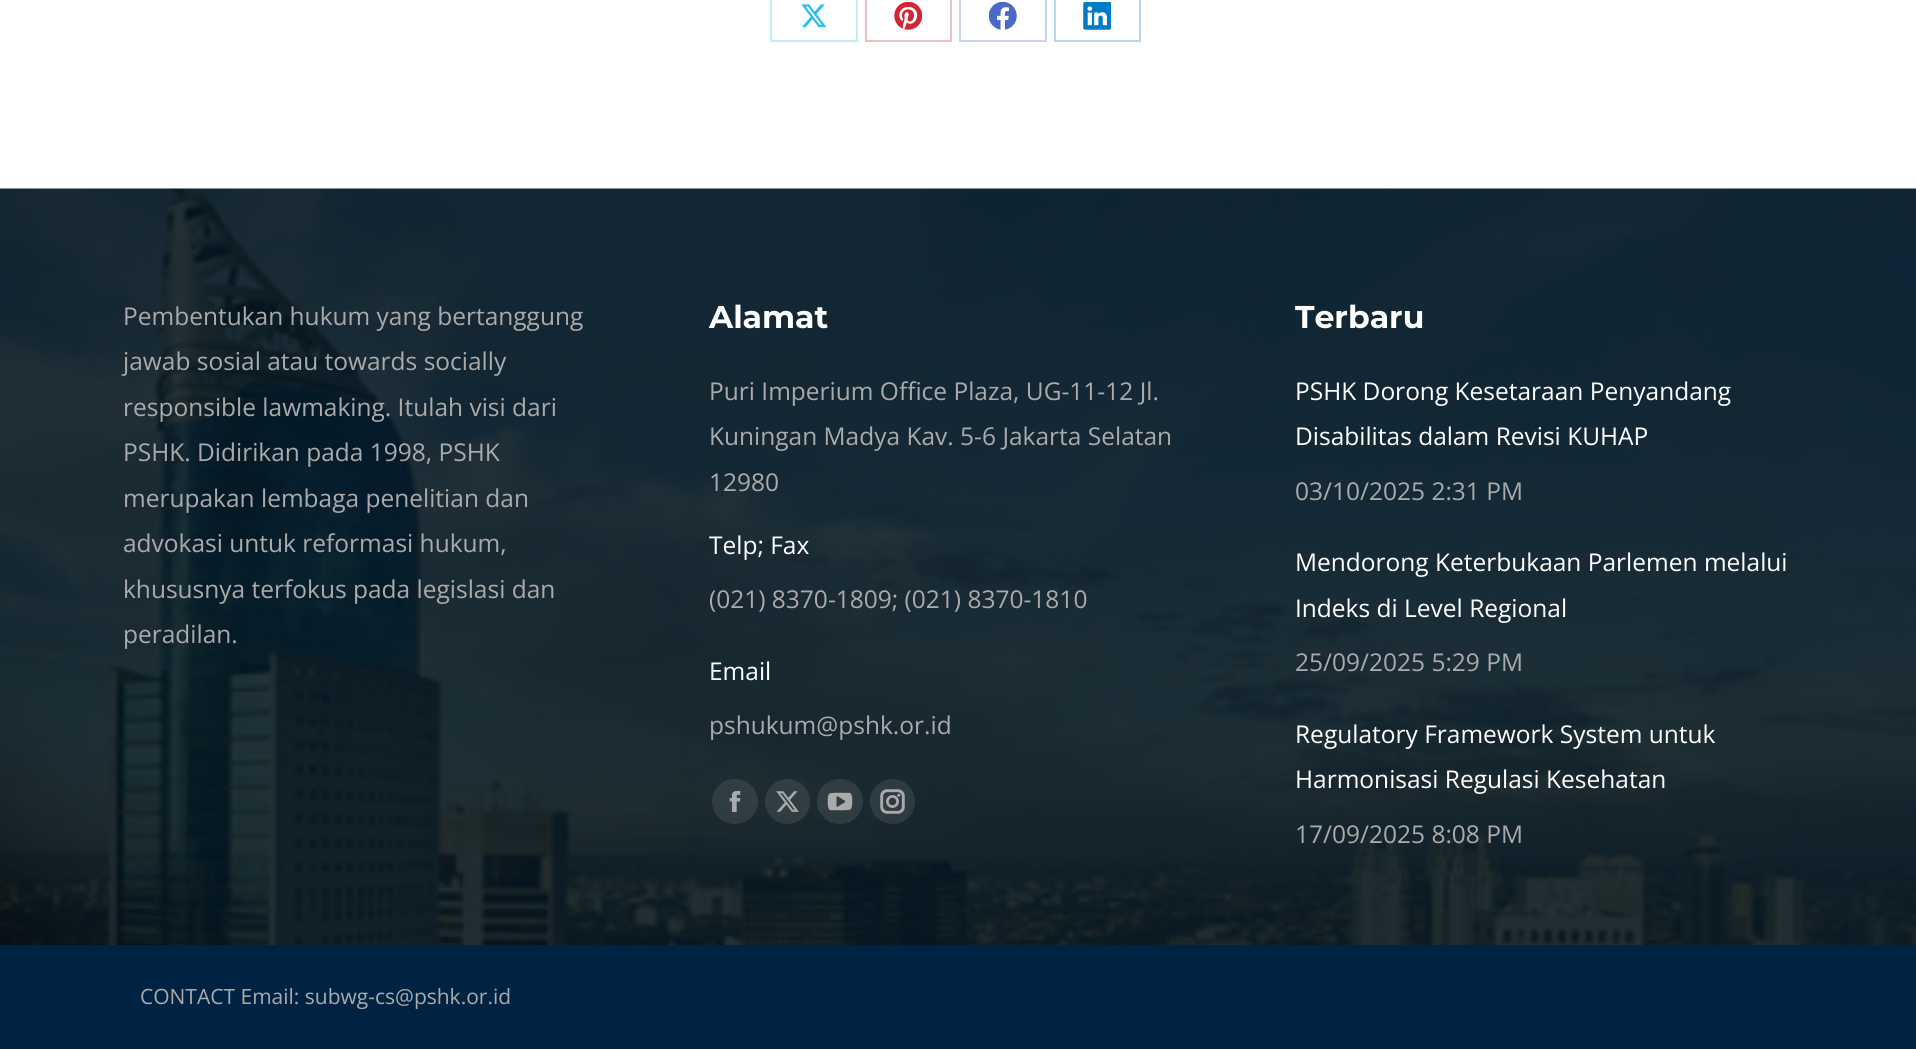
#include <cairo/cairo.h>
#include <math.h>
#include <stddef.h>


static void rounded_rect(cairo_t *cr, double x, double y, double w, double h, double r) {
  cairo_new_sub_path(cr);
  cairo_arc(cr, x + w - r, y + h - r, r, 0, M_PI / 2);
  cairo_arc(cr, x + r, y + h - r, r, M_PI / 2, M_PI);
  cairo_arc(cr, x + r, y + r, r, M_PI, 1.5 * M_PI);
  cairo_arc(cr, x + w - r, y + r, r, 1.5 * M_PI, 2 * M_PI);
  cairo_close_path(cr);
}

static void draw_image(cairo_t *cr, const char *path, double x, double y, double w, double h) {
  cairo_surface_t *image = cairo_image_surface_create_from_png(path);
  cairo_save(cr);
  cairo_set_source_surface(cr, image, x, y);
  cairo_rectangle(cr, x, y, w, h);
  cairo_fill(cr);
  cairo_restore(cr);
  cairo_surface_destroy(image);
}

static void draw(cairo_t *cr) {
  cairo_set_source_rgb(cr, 1, 1, 1);
  cairo_paint(cr);
  cairo_rectangle(cr, 771, -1, 86, 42);
  cairo_set_source_rgb(cr, 191 / 255.0, 236 / 255.0, 249 / 255.0);
  cairo_stroke(cr);
  draw_image(cr, "images/1.png", 801, 4, 26, 24);
  cairo_rectangle(cr, 866, -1, 85, 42);
  cairo_set_source_rgb(cr, 241 / 255.0, 191 / 255.0, 194 / 255.0);
  cairo_stroke(cr);
  draw_image(cr, "images/2.png", 894, 2, 28, 28);
  cairo_rectangle(cr, 960, -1, 86, 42);
  cairo_set_source_rgb(cr, 201 / 255.0, 210 / 255.0, 238 / 255.0);
  cairo_stroke(cr);
  draw_image(cr, "images/3.png", 989, 2, 28, 28);
  cairo_rectangle(cr, 1055, -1, 85, 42);
  cairo_set_source_rgb(cr, 179 / 255.0, 215 / 255.0, 238 / 255.0);
  cairo_stroke(cr);
  draw_image(cr, "images/4.png", 1083, 2, 28, 28);
  draw_image(cr, "images/5.png", 0, 188, 1916, 757);
  cairo_set_source_rgba(cr, 170 / 255.0, 170 / 255.0, 170 / 255.0, 0.15);
  rounded_rect(cr, 712, 779, 46, 45, 22.5);
  cairo_fill(cr);
  draw_image(cr, "images/6.png", 729, 791, 12, 21);
  cairo_arc(cr, 787.5, 801.5, 22.5, 0, 2 * M_PI);
  cairo_fill(cr);
  draw_image(cr, "images/7.png", 776, 791, 23, 21);
  rounded_rect(cr, 817, 779, 46, 45, 22.5);
  cairo_fill(cr);
  draw_image(cr, "images/8.png", 827, 792, 26, 19);
  cairo_arc(cr, 892.5, 801.5, 22.5, 0, 2 * M_PI);
  cairo_fill(cr);
  draw_image(cr, "images/9.png", 880, 789, 25, 25);
  cairo_set_source_rgb(cr, 0, 35 / 255.0, 68 / 255.0);
  cairo_rectangle(cr, 0, 945, 1916, 104);
  cairo_fill(cr);
  cairo_select_font_face(cr, "Open Sans", CAIRO_FONT_SLANT_NORMAL, CAIRO_FONT_WEIGHT_NORMAL);
  cairo_set_font_size(cr, 24.5);
  cairo_set_source_rgb(cr, 170 / 255.0, 170 / 255.0, 170 / 255.0);
  cairo_move_to(cr, 123, 325);
  cairo_show_text(cr, "Pembentukan hukum yang bertanggung");
  cairo_move_to(cr, 123, 370);
  cairo_show_text(cr, "jawab sosial atau towards socially");
  cairo_move_to(cr, 123, 416);
  cairo_show_text(cr, "responsible lawmaking. Itulah visi dari");
  cairo_move_to(cr, 123, 461);
  cairo_show_text(cr, "PSHK. Didirikan pada 1998, PSHK");
  cairo_move_to(cr, 123, 507);
  cairo_show_text(cr, "merupakan lembaga penelitian dan");
  cairo_move_to(cr, 123, 552);
  cairo_show_text(cr, "advokasi untuk reformasi hukum,");
  cairo_move_to(cr, 123, 598);
  cairo_show_text(cr, "khususnya terfokus pada legislasi dan");
  cairo_move_to(cr, 123, 643);
  cairo_show_text(cr, "peradilan.");
  cairo_select_font_face(cr, "Montserrat", CAIRO_FONT_SLANT_NORMAL, CAIRO_FONT_WEIGHT_BOLD);
  cairo_set_font_size(cr, 31.5);
  cairo_set_source_rgb(cr, 1, 1, 1);
  cairo_move_to(cr, 709, 328);
  cairo_show_text(cr, "Alamat");
  cairo_select_font_face(cr, "Open Sans", CAIRO_FONT_SLANT_NORMAL, CAIRO_FONT_WEIGHT_NORMAL);
  cairo_set_font_size(cr, 24.5);
  cairo_set_source_rgb(cr, 170 / 255.0, 170 / 255.0, 170 / 255.0);
  cairo_move_to(cr, 709, 400);
  cairo_show_text(cr, "Puri Imperium Office Plaza, UG-11-12 Jl.");
  cairo_move_to(cr, 709, 445);
  cairo_show_text(cr, "Kuningan Madya Kav. 5-6 Jakarta Selatan");
  cairo_move_to(cr, 709, 491);
  cairo_show_text(cr, "12980");
  cairo_set_source_rgb(cr, 1, 1, 1);
  cairo_move_to(cr, 709, 554);
  cairo_show_text(cr, "Telp; Fax");
  cairo_set_source_rgb(cr, 170 / 255.0, 170 / 255.0, 170 / 255.0);
  cairo_move_to(cr, 709, 608);
  cairo_show_text(cr, "(021) 8370-1809; (021) 8370-1810");
  cairo_set_source_rgb(cr, 1, 1, 1);
  cairo_move_to(cr, 709, 680);
  cairo_show_text(cr, "Email");
  cairo_set_source_rgb(cr, 170 / 255.0, 170 / 255.0, 170 / 255.0);
  cairo_move_to(cr, 709, 734);
  cairo_show_text(cr, "pshukum@pshk.or.id");
  cairo_select_font_face(cr, "Montserrat", CAIRO_FONT_SLANT_NORMAL, CAIRO_FONT_WEIGHT_BOLD);
  cairo_set_font_size(cr, 31.5);
  cairo_set_source_rgb(cr, 1, 1, 1);
  cairo_move_to(cr, 1295, 328);
  cairo_show_text(cr, "Terbaru");
  cairo_select_font_face(cr, "Open Sans", CAIRO_FONT_SLANT_NORMAL, CAIRO_FONT_WEIGHT_NORMAL);
  cairo_set_font_size(cr, 24.5);
  cairo_move_to(cr, 1295, 400);
  cairo_show_text(cr, "PSHK Dorong Kesetaraan Penyandang");
  cairo_move_to(cr, 1295, 445);
  cairo_show_text(cr, "Disabilitas dalam Revisi KUHAP");
  cairo_set_source_rgb(cr, 170 / 255.0, 170 / 255.0, 170 / 255.0);
  cairo_move_to(cr, 1295, 500);
  cairo_show_text(cr, "03/10/2025 2:31 PM");
  cairo_set_source_rgb(cr, 1, 1, 1);
  cairo_move_to(cr, 1295, 571);
  cairo_show_text(cr, "Mendorong Keterbukaan Parlemen melalui");
  cairo_move_to(cr, 1295, 617);
  cairo_show_text(cr, "Indeks di Level Regional");
  cairo_set_source_rgb(cr, 170 / 255.0, 170 / 255.0, 170 / 255.0);
  cairo_move_to(cr, 1295, 671);
  cairo_show_text(cr, "25/09/2025 5:29 PM");
  cairo_set_source_rgb(cr, 1, 1, 1);
  cairo_move_to(cr, 1295, 743);
  cairo_show_text(cr, "Regulatory Framework System untuk");
  cairo_move_to(cr, 1295, 788);
  cairo_show_text(cr, "Harmonisasi Regulasi Kesehatan");
  cairo_set_source_rgb(cr, 170 / 255.0, 170 / 255.0, 170 / 255.0);
  cairo_move_to(cr, 1295, 843);
  cairo_show_text(cr, "17/09/2025 8:08 PM");
  cairo_set_font_size(cr, 21);
  cairo_move_to(cr, 140, 1004);
  cairo_show_text(cr, "CONTACT Email: subwg-cs@pshk.or.id");
}

int main(void) {
  cairo_surface_t *surface = cairo_image_surface_create(CAIRO_FORMAT_RGB24, 1916, 1049);
  cairo_t *cr = cairo_create(surface);
  cairo_font_options_t *options = cairo_font_options_create();
  cairo_font_options_set_hint_metrics(options, CAIRO_HINT_METRICS_OFF);
  cairo_font_options_set_hint_style(options, CAIRO_HINT_STYLE_NONE);
  cairo_set_font_options(cr, options);
  cairo_set_miter_limit(cr, 4);
  draw(cr);
  cairo_surface_write_to_png(surface, "out.png");
  cairo_font_options_destroy(options);
  cairo_destroy(cr);
  cairo_surface_destroy(surface);
  return 0;
}
